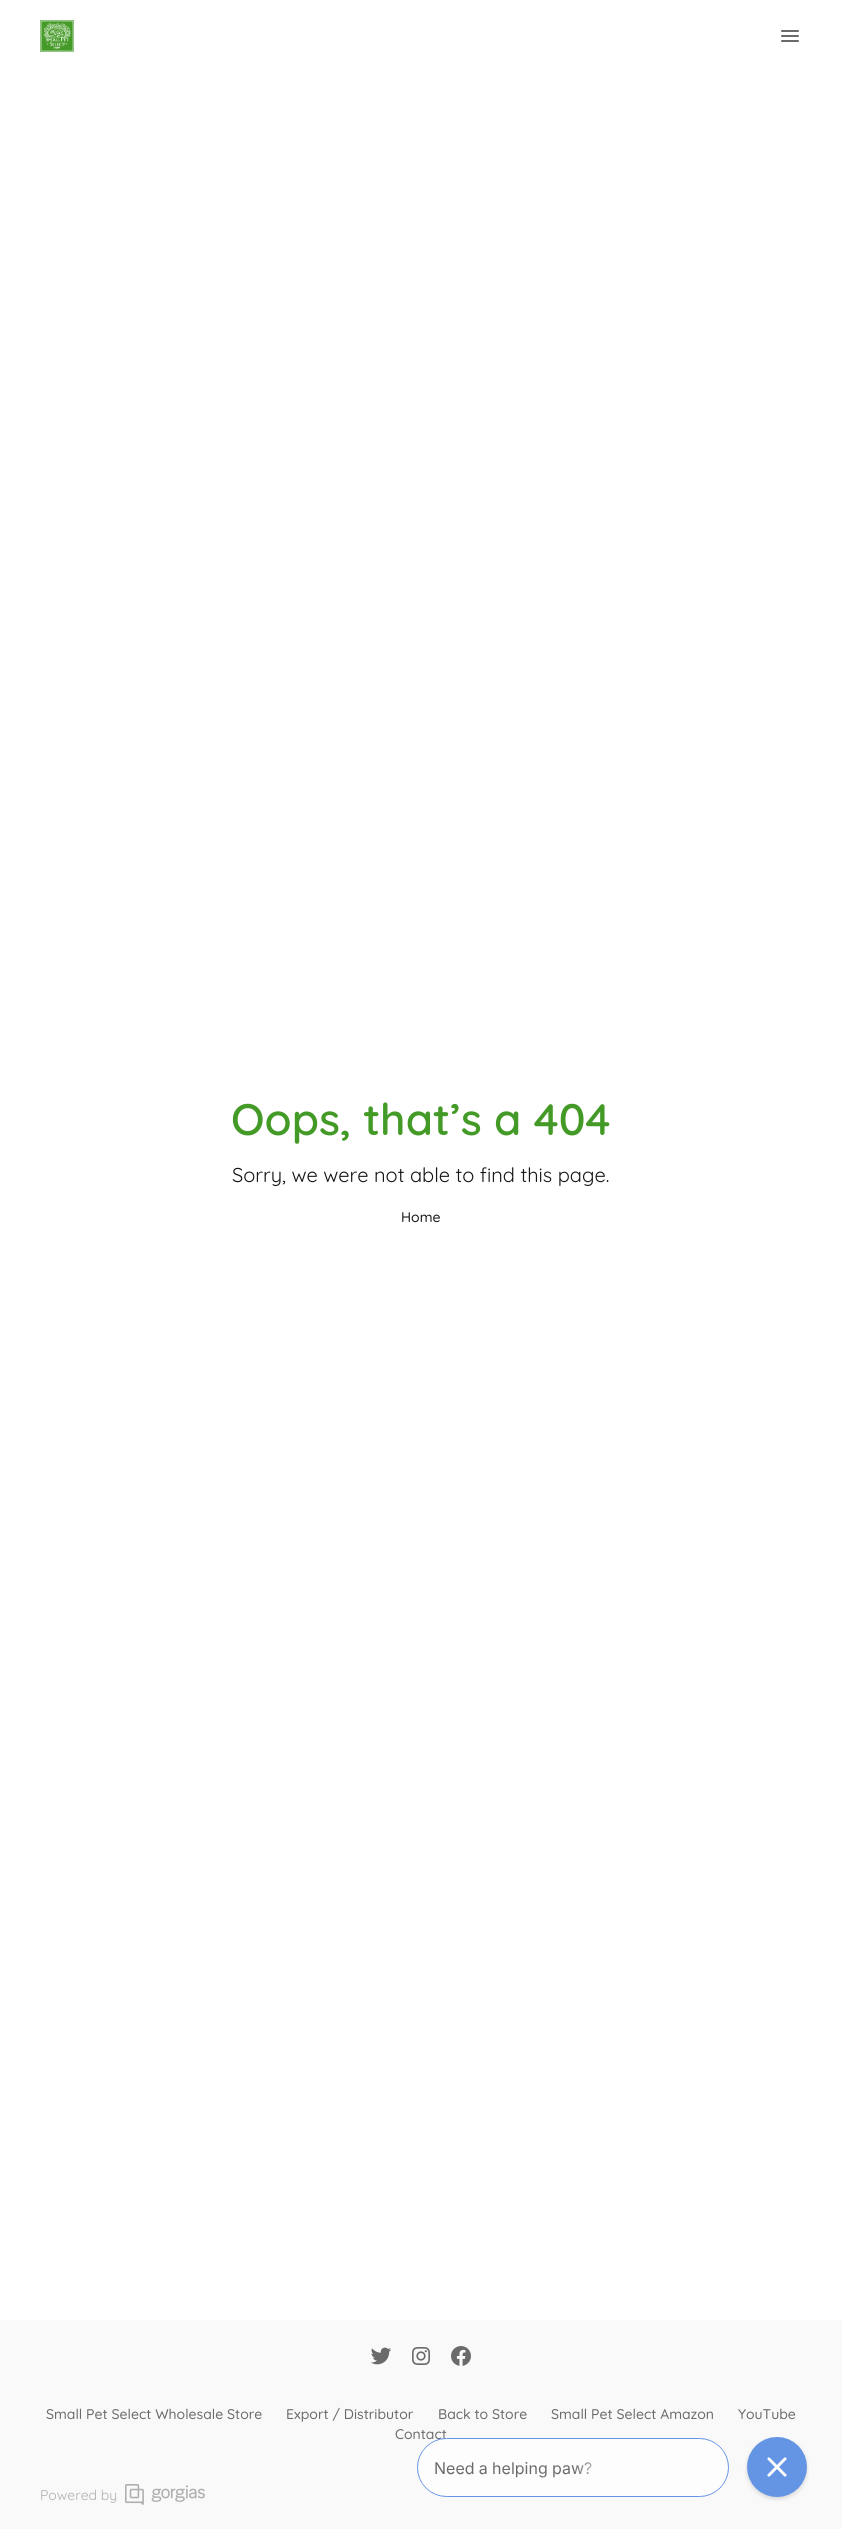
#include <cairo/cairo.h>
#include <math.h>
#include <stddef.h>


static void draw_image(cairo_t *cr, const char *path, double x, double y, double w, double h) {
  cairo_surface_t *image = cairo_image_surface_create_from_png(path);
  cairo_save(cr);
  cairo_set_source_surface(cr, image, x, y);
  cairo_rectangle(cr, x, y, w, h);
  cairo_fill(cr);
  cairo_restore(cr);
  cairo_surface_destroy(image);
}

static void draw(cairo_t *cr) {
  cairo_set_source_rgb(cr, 1, 1, 1);
  cairo_paint(cr);
  draw_image(cr, "images/1.png", 40, 20, 34, 32);
  draw_image(cr, "images/2.png", 781, 30, 18, 12);
  cairo_set_source_rgb(cr, 249 / 255.0, 249 / 255.0, 249 / 255.0);
  cairo_rectangle(cr, 0, 2320, 842, 209);
  cairo_fill(cr);
  draw_image(cr, "images/3.png", 371, 2347, 21, 18);
  draw_image(cr, "images/4.png", 412, 2347, 18, 18);
  draw_image(cr, "images/5.png", 451, 2346, 20, 20);
  draw_image(cr, "images/6.png", 125, 2484, 80, 21);
  cairo_select_font_face(cr, "Quicksand SemiBold", CAIRO_FONT_SLANT_NORMAL, CAIRO_FONT_WEIGHT_NORMAL);
  cairo_set_font_size(cr, 44);
  cairo_set_source_rgb(cr, 67 / 255.0, 154 / 255.0, 39 / 255.0);
  cairo_move_to(cr, 231, 1135);
  cairo_show_text(cr, "Oops, that’s a 404");
  cairo_select_font_face(cr, "Quicksand", CAIRO_FONT_SLANT_NORMAL, CAIRO_FONT_WEIGHT_NORMAL);
  cairo_set_font_size(cr, 20);
  cairo_set_source_rgb(cr, 22 / 255.0, 22 / 255.0, 22 / 255.0);
  cairo_move_to(cr, 232, 1182);
  cairo_show_text(cr, "Sorry, we were not able to find this page.");
  cairo_select_font_face(cr, "Quicksand Medium", CAIRO_FONT_SLANT_NORMAL, CAIRO_FONT_WEIGHT_NORMAL);
  cairo_set_font_size(cr, 14);
  cairo_move_to(cr, 401, 1222);
  cairo_show_text(cr, "Home");
  cairo_set_source_rgb(cr, 106 / 255.0, 106 / 255.0, 106 / 255.0);
  cairo_move_to(cr, 46, 2419);
  cairo_show_text(cr, "Small Pet Select Wholesale Store");
  cairo_move_to(cr, 286, 2419);
  cairo_show_text(cr, "Export / Distributor");
  cairo_move_to(cr, 438, 2419);
  cairo_show_text(cr, "Back to Store");
  cairo_move_to(cr, 551, 2419);
  cairo_show_text(cr, "Small Pet Select Amazon");
  cairo_move_to(cr, 738, 2419);
  cairo_show_text(cr, "YouTube");
  cairo_move_to(cr, 395, 2439);
  cairo_show_text(cr, "Contact");
  cairo_select_font_face(cr, "Quicksand", CAIRO_FONT_SLANT_NORMAL, CAIRO_FONT_WEIGHT_NORMAL);
  cairo_set_source_rgb(cr, 175 / 255.0, 175 / 255.0, 175 / 255.0);
  cairo_move_to(cr, 40, 2500);
  cairo_show_text(cr, "Powered by");
  draw_image(cr, "images/7.png", 417, 2437, 392, 64);
}

int main(void) {
  cairo_surface_t *surface = cairo_image_surface_create(CAIRO_FORMAT_RGB24, 842, 2529);
  cairo_t *cr = cairo_create(surface);
  cairo_font_options_t *options = cairo_font_options_create();
  cairo_font_options_set_hint_metrics(options, CAIRO_HINT_METRICS_OFF);
  cairo_font_options_set_hint_style(options, CAIRO_HINT_STYLE_NONE);
  cairo_set_font_options(cr, options);
  cairo_set_miter_limit(cr, 4);
  draw(cr);
  cairo_surface_write_to_png(surface, "out.png");
  cairo_font_options_destroy(options);
  cairo_destroy(cr);
  cairo_surface_destroy(surface);
  return 0;
}
